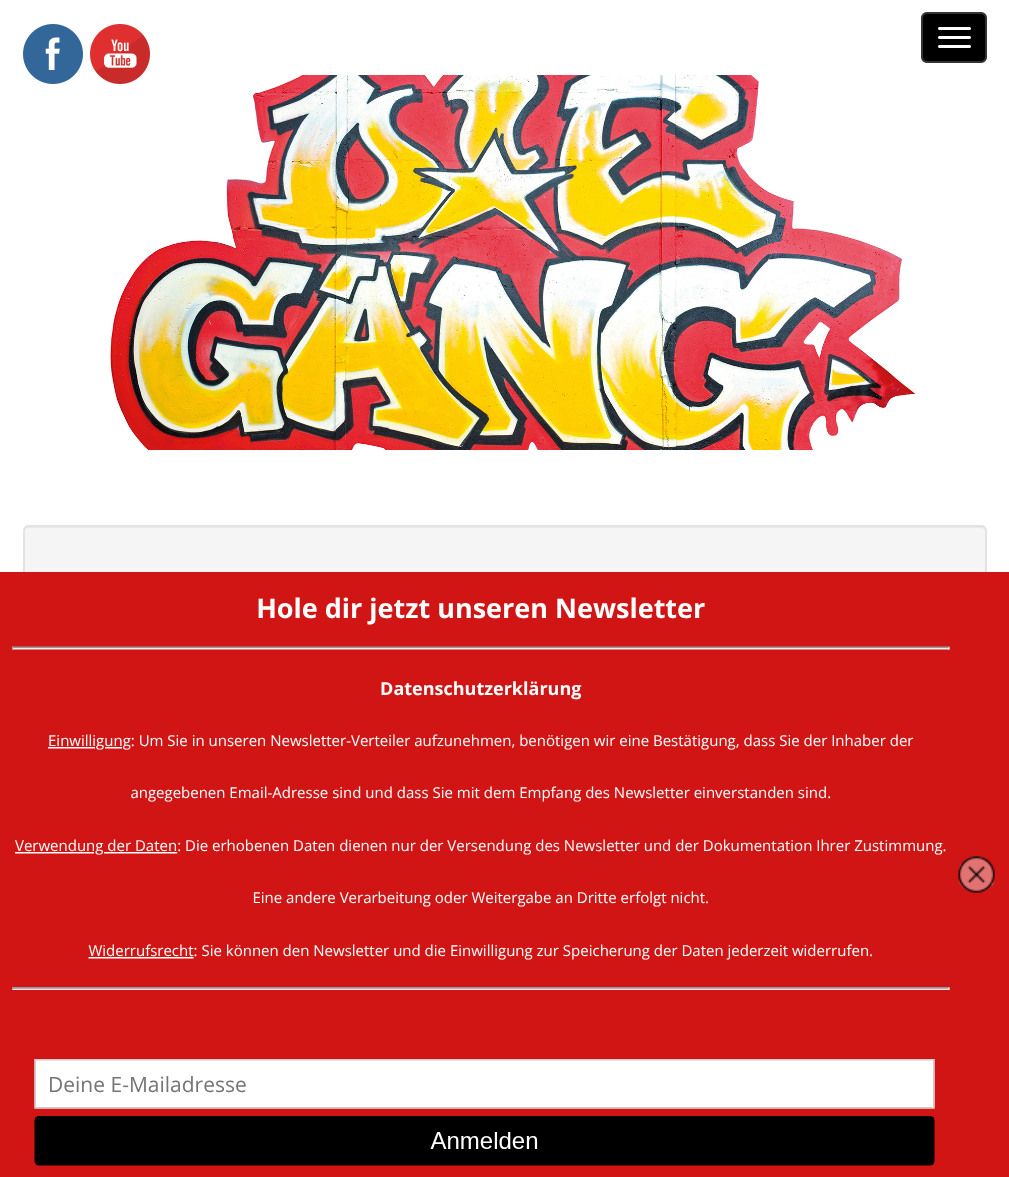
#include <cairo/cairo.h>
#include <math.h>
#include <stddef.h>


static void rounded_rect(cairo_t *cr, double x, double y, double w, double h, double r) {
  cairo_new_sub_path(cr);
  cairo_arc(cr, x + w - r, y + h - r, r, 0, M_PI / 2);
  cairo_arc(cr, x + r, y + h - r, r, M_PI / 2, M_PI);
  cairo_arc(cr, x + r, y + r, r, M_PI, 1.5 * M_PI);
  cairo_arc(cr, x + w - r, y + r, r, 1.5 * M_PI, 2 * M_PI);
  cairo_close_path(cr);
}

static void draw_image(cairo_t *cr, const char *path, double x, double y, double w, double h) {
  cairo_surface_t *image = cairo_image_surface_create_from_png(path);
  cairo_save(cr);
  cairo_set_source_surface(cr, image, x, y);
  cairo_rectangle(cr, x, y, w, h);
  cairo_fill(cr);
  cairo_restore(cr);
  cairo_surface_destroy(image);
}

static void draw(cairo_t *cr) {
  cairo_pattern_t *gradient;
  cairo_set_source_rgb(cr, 1, 1, 1);
  cairo_paint(cr);
  cairo_set_source_rgb(cr, 0, 0, 0);
  rounded_rect(cr, 922, 13, 64, 49, 5);
  cairo_fill_preserve(cr);
  cairo_set_source_rgb(cr, 51 / 255.0, 51 / 255.0, 51 / 255.0);
  cairo_stroke(cr);
  cairo_set_source_rgb(cr, 1, 1, 1);
  rounded_rect(cr, 938, 27, 33, 3, 1.5);
  cairo_fill(cr);
  rounded_rect(cr, 938, 36, 33, 3, 1.5);
  cairo_fill(cr);
  rounded_rect(cr, 938, 45, 33, 3, 1.5);
  cairo_fill(cr);
  draw_image(cr, "images/1.png", 109, 75, 808, 375);
  cairo_set_source_rgb(cr, 245 / 255.0, 245 / 255.0, 245 / 255.0);
  rounded_rect(cr, 23, 525, 964, 107, 6);
  cairo_fill(cr);
  cairo_set_source_rgb(cr, 233 / 255.0, 233 / 255.0, 233 / 255.0);
  cairo_new_path(cr);
  cairo_move_to(cr, 28, 528);
  cairo_line_to(cr, 981, 528);
  cairo_curve_to(cr, 983, 528, 986, 530, 986, 532);
  cairo_curve_to(cr, 986, 529, 984, 527, 981, 527);
  cairo_line_to(cr, 29, 527);
  cairo_curve_to(cr, 26, 527, 24, 529, 24, 532);
  cairo_curve_to(cr, 24, 530, 26, 528, 28, 528);
  cairo_close_path(cr);
  cairo_fill(cr);
  rounded_rect(cr, 24, 526, 962, 105, 5);
  cairo_set_source_rgb(cr, 227 / 255.0, 227 / 255.0, 227 / 255.0);
  cairo_stroke(cr);
  cairo_set_source_rgb(cr, 51 / 255.0, 102 / 255.0, 153 / 255.0);
  cairo_arc(cr, 53, 54, 30, 0, 2 * M_PI);
  cairo_fill(cr);
  draw_image(cr, "images/2.png", 45, 37, 15, 33);
  gradient = cairo_pattern_create_linear(94, 21, 146, 87);
  cairo_pattern_add_color_stop_rgba(gradient, 0.14, 224 / 255.0, 47 / 255.0, 47 / 255.0, 1);
  cairo_pattern_add_color_stop_rgba(gradient, 0.49, 224 / 255.0, 47 / 255.0, 47 / 255.0, 1);
  cairo_pattern_add_color_stop_rgba(gradient, 0.49, 201 / 255.0, 42 / 255.0, 42 / 255.0, 1);
  cairo_pattern_add_color_stop_rgba(gradient, 0.85, 201 / 255.0, 42 / 255.0, 42 / 255.0, 1);
  cairo_set_source(cr, gradient);
  cairo_pattern_destroy(gradient);
  cairo_arc(cr, 120, 54, 30, 0, 2 * M_PI);
  cairo_fill(cr);
  draw_image(cr, "images/3.png", 104, 39, 33, 29);
  draw_image(cr, "images/4.png", 0, 572, 1009, 605);
}

int main(void) {
  cairo_surface_t *surface = cairo_image_surface_create(CAIRO_FORMAT_RGB24, 1009, 1177);
  cairo_t *cr = cairo_create(surface);
  cairo_font_options_t *options = cairo_font_options_create();
  cairo_font_options_set_hint_metrics(options, CAIRO_HINT_METRICS_OFF);
  cairo_font_options_set_hint_style(options, CAIRO_HINT_STYLE_NONE);
  cairo_set_font_options(cr, options);
  cairo_set_miter_limit(cr, 4);
  draw(cr);
  cairo_surface_write_to_png(surface, "out.png");
  cairo_font_options_destroy(options);
  cairo_destroy(cr);
  cairo_surface_destroy(surface);
  return 0;
}
